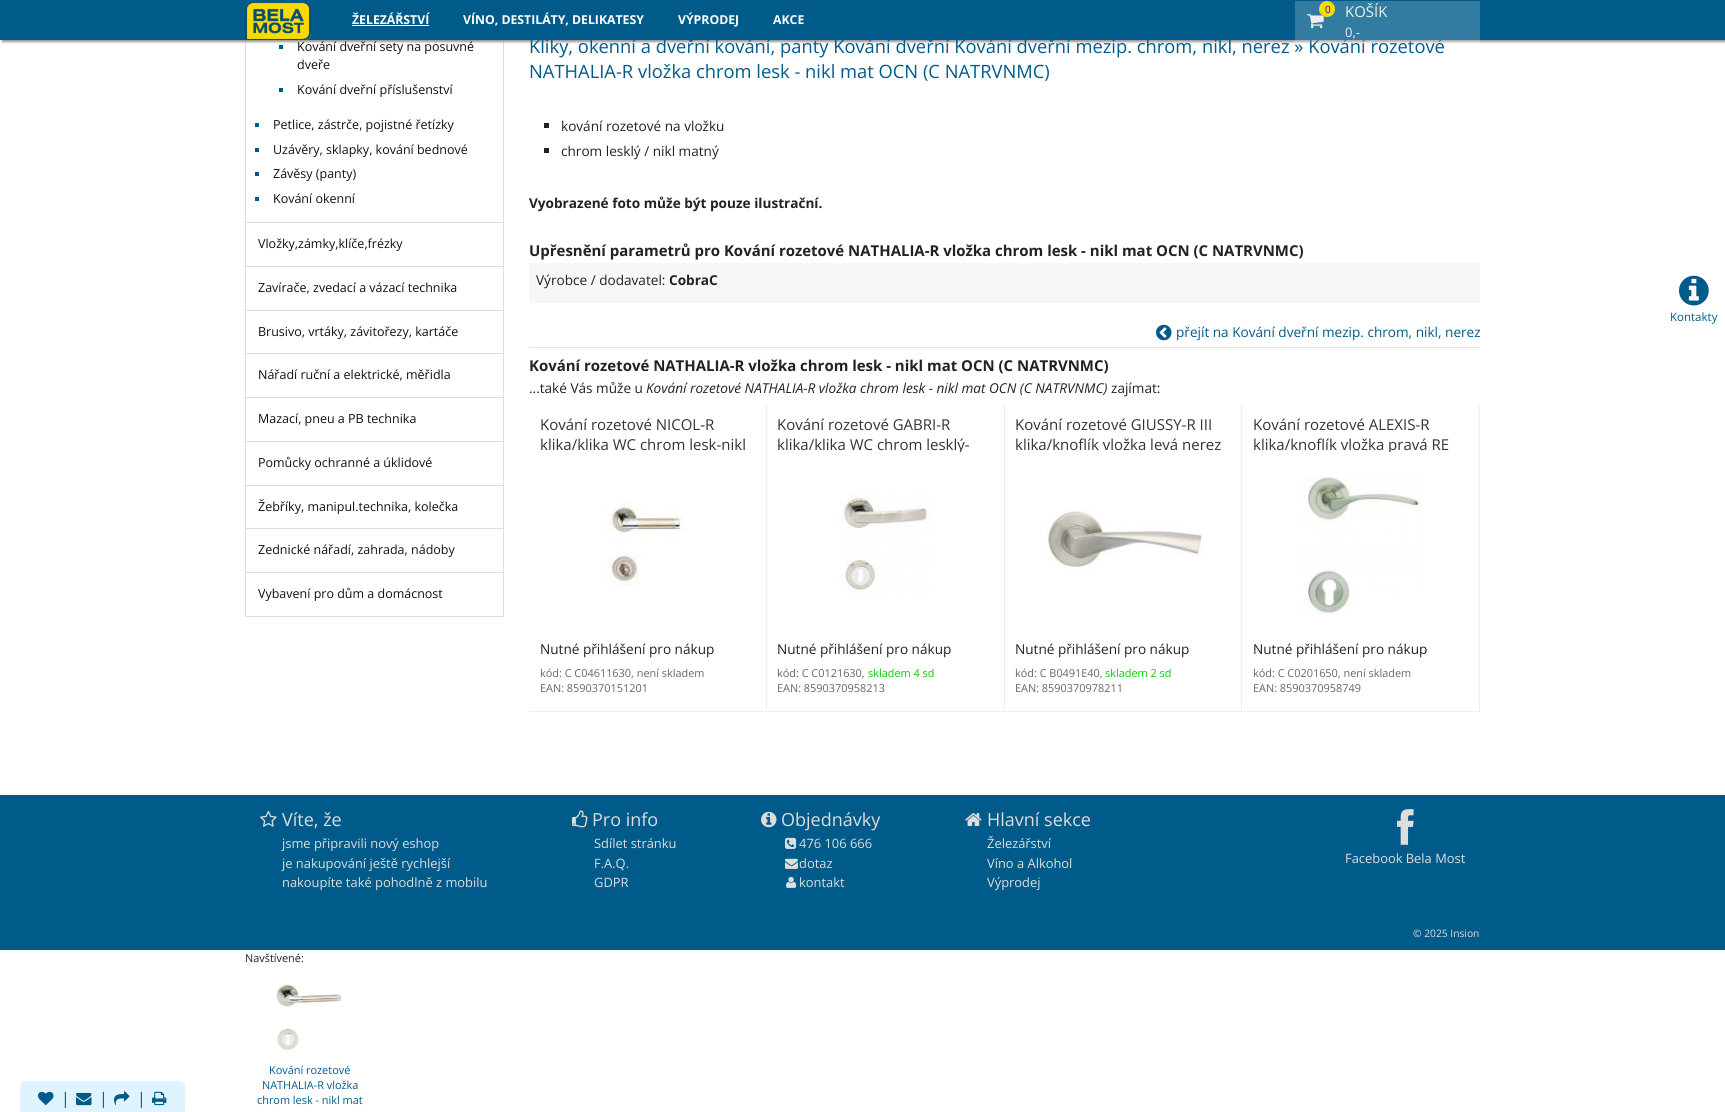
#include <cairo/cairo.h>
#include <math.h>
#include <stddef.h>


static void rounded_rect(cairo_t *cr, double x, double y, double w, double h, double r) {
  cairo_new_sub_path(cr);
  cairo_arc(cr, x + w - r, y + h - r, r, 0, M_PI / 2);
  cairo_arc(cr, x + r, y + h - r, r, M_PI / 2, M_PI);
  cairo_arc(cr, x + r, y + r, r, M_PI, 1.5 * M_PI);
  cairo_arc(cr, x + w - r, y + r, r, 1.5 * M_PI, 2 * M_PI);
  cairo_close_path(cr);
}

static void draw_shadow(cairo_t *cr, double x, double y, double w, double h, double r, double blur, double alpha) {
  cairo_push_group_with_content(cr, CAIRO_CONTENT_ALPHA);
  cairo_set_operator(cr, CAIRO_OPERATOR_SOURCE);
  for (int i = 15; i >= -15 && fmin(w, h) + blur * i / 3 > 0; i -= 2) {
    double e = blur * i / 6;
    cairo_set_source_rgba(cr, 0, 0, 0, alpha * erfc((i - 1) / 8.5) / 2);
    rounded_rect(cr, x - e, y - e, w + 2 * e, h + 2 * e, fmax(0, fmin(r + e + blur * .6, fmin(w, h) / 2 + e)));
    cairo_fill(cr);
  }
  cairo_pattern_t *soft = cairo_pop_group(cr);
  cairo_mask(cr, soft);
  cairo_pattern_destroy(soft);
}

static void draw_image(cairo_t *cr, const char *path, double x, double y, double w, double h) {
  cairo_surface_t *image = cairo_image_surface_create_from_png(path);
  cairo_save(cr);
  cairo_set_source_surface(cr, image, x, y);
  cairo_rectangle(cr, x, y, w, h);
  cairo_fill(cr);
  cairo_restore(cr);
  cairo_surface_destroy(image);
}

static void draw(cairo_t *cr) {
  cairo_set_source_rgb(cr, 1, 1, 1);
  cairo_paint(cr);
  cairo_set_source_rgb(cr, 221 / 255.0, 221 / 255.0, 221 / 255.0);
  cairo_rectangle(cr, 503, 40, 1, 577);
  cairo_fill(cr);
  cairo_rectangle(cr, 245, 222, 259, 1);
  cairo_fill(cr);
  cairo_rectangle(cr, 245, 40, 1, 183);
  cairo_fill(cr);
  cairo_set_source_rgb(cr, 0, 91 / 255.0, 138 / 255.0);
  cairo_rectangle(cr, 279, 45, 4, 4);
  cairo_fill(cr);
  cairo_set_source_rgb(cr, 153 / 255.0, 153 / 255.0, 153 / 255.0);
  draw_shadow(cr, 2, -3, 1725, 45, 0, 1, 1);
  cairo_set_source_rgb(cr, 0, 91 / 255.0, 138 / 255.0);
  cairo_rectangle(cr, 0, 0, 1725, 40);
  cairo_fill(cr);
  draw_image(cr, "images/1.png", 245, 2, 66, 38);
  cairo_set_source_rgb(cr, 1, 1, 1);
  cairo_rectangle(cr, 352, 25, 77, 1);
  cairo_fill(cr);
  cairo_set_source_rgb(cr, 0, 91 / 255.0, 138 / 255.0);
  cairo_rectangle(cr, 279, 88, 4, 4);
  cairo_fill(cr);
  cairo_rectangle(cr, 255, 123, 4, 4);
  cairo_fill(cr);
  cairo_rectangle(cr, 255, 148, 4, 4);
  cairo_fill(cr);
  cairo_rectangle(cr, 255, 172, 4, 4);
  cairo_fill(cr);
  cairo_rectangle(cr, 255, 197, 4, 4);
  cairo_fill(cr);
  cairo_set_source_rgb(cr, 221 / 255.0, 221 / 255.0, 221 / 255.0);
  cairo_rectangle(cr, 245, 266, 259, 1);
  cairo_fill(cr);
  cairo_rectangle(cr, 245, 223, 1, 44);
  cairo_fill(cr);
  cairo_rectangle(cr, 245, 310, 259, 1);
  cairo_fill(cr);
  cairo_rectangle(cr, 245, 267, 1, 44);
  cairo_fill(cr);
  cairo_rectangle(cr, 245, 353, 259, 1);
  cairo_fill(cr);
  cairo_rectangle(cr, 245, 311, 1, 43);
  cairo_fill(cr);
  cairo_rectangle(cr, 245, 397, 259, 1);
  cairo_fill(cr);
  cairo_rectangle(cr, 245, 354, 1, 44);
  cairo_fill(cr);
  cairo_rectangle(cr, 245, 441, 259, 1);
  cairo_fill(cr);
  cairo_rectangle(cr, 245, 398, 1, 44);
  cairo_fill(cr);
  cairo_rectangle(cr, 245, 485, 259, 1);
  cairo_fill(cr);
  cairo_rectangle(cr, 245, 442, 1, 44);
  cairo_fill(cr);
  cairo_rectangle(cr, 245, 528, 259, 1);
  cairo_fill(cr);
  cairo_rectangle(cr, 245, 486, 1, 43);
  cairo_fill(cr);
  cairo_rectangle(cr, 245, 572, 259, 1);
  cairo_fill(cr);
  cairo_rectangle(cr, 245, 529, 1, 44);
  cairo_fill(cr);
  cairo_rectangle(cr, 245, 616, 259, 1);
  cairo_fill(cr);
  cairo_rectangle(cr, 245, 573, 1, 44);
  cairo_fill(cr);
  cairo_set_source_rgb(cr, 34 / 255.0, 34 / 255.0, 34 / 255.0);
  cairo_rectangle(cr, 544, 123, 5, 5);
  cairo_fill(cr);
  cairo_rectangle(cr, 544, 148, 5, 5);
  cairo_fill(cr);
  cairo_set_source_rgb(cr, 247 / 255.0, 247 / 255.0, 247 / 255.0);
  cairo_rectangle(cr, 529, 263, 951, 40);
  cairo_fill(cr);
  draw_image(cr, "images/3.png", 1156, 324, 16, 17);
  cairo_set_source_rgb(cr, 231 / 255.0, 231 / 255.0, 231 / 255.0);
  cairo_rectangle(cr, 529, 347, 951, 1);
  cairo_fill(cr);
  cairo_set_source_rgb(cr, 238 / 255.0, 238 / 255.0, 238 / 255.0);
  cairo_new_path(cr);
  cairo_move_to(cr, 767, 404);
  cairo_line_to(cr, 767, 712);
  cairo_line_to(cr, 766, 711);
  cairo_line_to(cr, 766, 405);
  cairo_close_path(cr);
  cairo_fill(cr);
  cairo_new_path(cr);
  cairo_move_to(cr, 767, 712);
  cairo_line_to(cr, 529, 712);
  cairo_line_to(cr, 530, 711);
  cairo_line_to(cr, 766, 711);
  cairo_close_path(cr);
  cairo_fill(cr);
  draw_image(cr, "images/4.png", 602, 501, 83, 85);
  cairo_new_path(cr);
  cairo_move_to(cr, 1005, 404);
  cairo_line_to(cr, 1005, 712);
  cairo_line_to(cr, 1004, 711);
  cairo_line_to(cr, 1004, 405);
  cairo_close_path(cr);
  cairo_fill(cr);
  cairo_new_path(cr);
  cairo_move_to(cr, 1005, 712);
  cairo_line_to(cr, 767, 712);
  cairo_line_to(cr, 768, 711);
  cairo_line_to(cr, 1004, 711);
  cairo_close_path(cr);
  cairo_fill(cr);
  draw_image(cr, "images/5.png", 839, 493, 93, 101);
  cairo_new_path(cr);
  cairo_move_to(cr, 1242, 404);
  cairo_line_to(cr, 1242, 712);
  cairo_line_to(cr, 1241, 711);
  cairo_line_to(cr, 1241, 405);
  cairo_close_path(cr);
  cairo_fill(cr);
  cairo_new_path(cr);
  cairo_move_to(cr, 1242, 712);
  cairo_line_to(cr, 1005, 712);
  cairo_line_to(cr, 1006, 711);
  cairo_line_to(cr, 1241, 711);
  cairo_close_path(cr);
  cairo_fill(cr);
  draw_image(cr, "images/6.png", 1046, 510, 157, 60);
  cairo_new_path(cr);
  cairo_move_to(cr, 1480, 404);
  cairo_line_to(cr, 1480, 712);
  cairo_line_to(cr, 1479, 711);
  cairo_line_to(cr, 1479, 405);
  cairo_close_path(cr);
  cairo_fill(cr);
  cairo_new_path(cr);
  cairo_move_to(cr, 1480, 712);
  cairo_line_to(cr, 1242, 712);
  cairo_line_to(cr, 1243, 711);
  cairo_line_to(cr, 1479, 711);
  cairo_close_path(cr);
  cairo_fill(cr);
  draw_image(cr, "images/7.png", 1300, 477, 122, 139);
  draw_image(cr, "images/8.png", 1679, 275, 30, 31);
  cairo_set_source_rgb(cr, 0, 91 / 255.0, 138 / 255.0);
  cairo_rectangle(cr, 0, 795, 1725, 155);
  cairo_fill(cr);
  draw_image(cr, "images/9.png", 260, 810, 17, 17);
  draw_image(cr, "images/10.png", 572, 810, 16, 18);
  draw_image(cr, "images/11.png", 761, 811, 16, 17);
  draw_image(cr, "images/12.png", 785, 837, 12, 12);
  draw_image(cr, "images/13.png", 785, 858, 13, 11);
  draw_image(cr, "images/14.png", 786, 876, 11, 12);
  draw_image(cr, "images/15.png", 965, 813, 17, 13);
  draw_image(cr, "images/16.png", 1397, 809, 17, 36);
  cairo_set_source_rgb(cr, 223 / 255.0, 244 / 255.0, 1);
  rounded_rect(cr, 20, 1081, 165, 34, 5);
  cairo_fill(cr);
  draw_image(cr, "images/17.png", 38, 1091, 16, 15);
  draw_image(cr, "images/18.png", 76, 1092, 16, 14);
  draw_image(cr, "images/19.png", 114, 1091, 16, 15);
  draw_image(cr, "images/20.png", 152, 1091, 15, 15);
  draw_image(cr, "images/21.png", 276, 984, 66, 67);
  cairo_select_font_face(cr, "Open Sans", CAIRO_FONT_SLANT_NORMAL, CAIRO_FONT_WEIGHT_BOLD);
  cairo_set_font_size(cr, 12.25);
  cairo_set_source_rgb(cr, 1, 1, 1);
  cairo_move_to(cr, 352, 24);
  cairo_show_text(cr, "ŽELEZÁŘSTVÍ");
  cairo_move_to(cr, 463, 24);
  cairo_show_text(cr, "VÍNO, DESTILÁTY, DELIKATESY");
  cairo_move_to(cr, 678, 24);
  cairo_show_text(cr, "VÝPRODEJ");
  cairo_move_to(cr, 773, 24);
  cairo_show_text(cr, "AKCE");
  cairo_select_font_face(cr, "Open Sans", CAIRO_FONT_SLANT_NORMAL, CAIRO_FONT_WEIGHT_NORMAL);
  cairo_set_font_size(cr, 12.5);
  cairo_set_source_rgb(cr, 17 / 255.0, 17 / 255.0, 17 / 255.0);
  cairo_move_to(cr, 297, 51);
  cairo_show_text(cr, "Kování dveřní sety na posuvné");
  cairo_move_to(cr, 297, 69);
  cairo_show_text(cr, "dveře");
  cairo_move_to(cr, 297, 94);
  cairo_show_text(cr, "Kování dveřní příslušenství");
  cairo_move_to(cr, 273, 129);
  cairo_show_text(cr, "Petlice, zástrče, pojistné řetízky");
  cairo_move_to(cr, 273, 154);
  cairo_show_text(cr, "Uzávěry, sklapky, kování bednové");
  cairo_move_to(cr, 273, 178);
  cairo_show_text(cr, "Závěsy (panty)");
  cairo_move_to(cr, 273, 203);
  cairo_show_text(cr, "Kování okenní");
  cairo_move_to(cr, 258, 248);
  cairo_show_text(cr, "Vložky,zámky,klíče,frézky");
  cairo_move_to(cr, 258, 292);
  cairo_show_text(cr, "Zavírače, zvedací a vázací technika");
  cairo_move_to(cr, 258, 336);
  cairo_show_text(cr, "Brusivo, vrtáky, závitořezy, kartáče");
  cairo_move_to(cr, 258, 379);
  cairo_show_text(cr, "Nářadí ruční a elektrické, měřidla");
  cairo_move_to(cr, 258, 423);
  cairo_show_text(cr, "Mazací, pneu a PB technika");
  cairo_move_to(cr, 258, 467);
  cairo_show_text(cr, "Pomůcky ochranné a úklidové");
  cairo_move_to(cr, 258, 511);
  cairo_show_text(cr, "Žebříky, manipul.technika, kolečka");
  cairo_move_to(cr, 258, 554);
  cairo_show_text(cr, "Zednické nářadí, zahrada, nádoby");
  cairo_move_to(cr, 258, 598);
  cairo_show_text(cr, "Vybavení pro dům a domácnost");
  cairo_set_font_size(cr, 18.35);
  cairo_set_source_rgb(cr, 0, 91 / 255.0, 138 / 255.0);
  cairo_move_to(cr, 529, 53);
  cairo_show_text(cr, "Kliky, okenní a dveřní kování, panty Kování dveřní Kování dveřní mezip. chrom, nikl, nerez » Kování rozetové");
  cairo_set_source_rgba(cr, 1, 1, 1, 0.2);
  cairo_rectangle(cr, 1295, 1, 185, 42);
  cairo_fill(cr);
  draw_image(cr, "images/2.png", 1307, 14, 17, 15);
  cairo_set_source_rgb(cr, 251 / 255.0, 218 / 255.0, 4 / 255.0);
  cairo_arc(cr, 1327, 9, 8, 0, 2 * M_PI);
  cairo_fill(cr);
  cairo_set_font_size(cr, 10);
  cairo_set_source_rgb(cr, 34 / 255.0, 34 / 255.0, 34 / 255.0);
  cairo_move_to(cr, 1325, 13);
  cairo_show_text(cr, "0");
  cairo_set_font_size(cr, 13);
  cairo_set_source_rgb(cr, 238 / 255.0, 238 / 255.0, 238 / 255.0);
  cairo_move_to(cr, 1345, 37);
  cairo_show_text(cr, "0,-");
  cairo_set_font_size(cr, 14.95);
  cairo_move_to(cr, 1345, 17);
  cairo_show_text(cr, "KOŠÍK");
  cairo_set_font_size(cr, 18.35);
  cairo_set_source_rgb(cr, 0, 91 / 255.0, 138 / 255.0);
  cairo_move_to(cr, 529, 78);
  cairo_show_text(cr, "NATHALIA-R vložka chrom lesk - nikl mat OCN (C NATRVNMC)");
  cairo_set_font_size(cr, 13.6);
  cairo_set_source_rgb(cr, 34 / 255.0, 34 / 255.0, 34 / 255.0);
  cairo_move_to(cr, 561, 131);
  cairo_show_text(cr, "kování rozetové na vložku");
  cairo_move_to(cr, 561, 156);
  cairo_show_text(cr, "chrom lesklý / nikl matný");
  cairo_select_font_face(cr, "Open Sans", CAIRO_FONT_SLANT_NORMAL, CAIRO_FONT_WEIGHT_BOLD);
  cairo_move_to(cr, 529, 208);
  cairo_show_text(cr, "Vyobrazené foto může být pouze ilustrační.");
  cairo_set_font_size(cr, 14.95);
  cairo_move_to(cr, 529, 256);
  cairo_show_text(cr, "Upřesnění parametrů pro Kování rozetové NATHALIA-R vložka chrom lesk - nikl mat OCN (C NATRVNMC)");
  cairo_select_font_face(cr, "Open Sans", CAIRO_FONT_SLANT_NORMAL, CAIRO_FONT_WEIGHT_NORMAL);
  cairo_set_font_size(cr, 13.6);
  cairo_move_to(cr, 536, 285);
  cairo_show_text(cr, "Výrobce / dodavatel:");
  cairo_select_font_face(cr, "Open Sans", CAIRO_FONT_SLANT_NORMAL, CAIRO_FONT_WEIGHT_BOLD);
  cairo_move_to(cr, 669, 285);
  cairo_show_text(cr, "CobraC");
  cairo_select_font_face(cr, "Open Sans", CAIRO_FONT_SLANT_NORMAL, CAIRO_FONT_WEIGHT_NORMAL);
  cairo_set_source_rgb(cr, 0, 91 / 255.0, 138 / 255.0);
  cairo_move_to(cr, 1176, 337);
  cairo_show_text(cr, "přejít na Kování dveřní mezip. chrom, nikl, nerez");
  cairo_select_font_face(cr, "Open Sans", CAIRO_FONT_SLANT_NORMAL, CAIRO_FONT_WEIGHT_BOLD);
  cairo_set_font_size(cr, 14.95);
  cairo_set_source_rgb(cr, 34 / 255.0, 34 / 255.0, 34 / 255.0);
  cairo_move_to(cr, 529, 371);
  cairo_show_text(cr, "Kování rozetové NATHALIA-R vložka chrom lesk - nikl mat OCN (C NATRVNMC)");
  cairo_select_font_face(cr, "Open Sans", CAIRO_FONT_SLANT_NORMAL, CAIRO_FONT_WEIGHT_NORMAL);
  cairo_set_font_size(cr, 13.6);
  cairo_move_to(cr, 529, 393);
  cairo_show_text(cr, "...také Vás může u");
  cairo_select_font_face(cr, "Open Sans", CAIRO_FONT_SLANT_ITALIC, CAIRO_FONT_WEIGHT_NORMAL);
  cairo_move_to(cr, 646, 393);
  cairo_show_text(cr, "Kování rozetové NATHALIA-R vložka chrom lesk - nikl mat OCN (C NATRVNMC)");
  cairo_select_font_face(cr, "Open Sans", CAIRO_FONT_SLANT_NORMAL, CAIRO_FONT_WEIGHT_NORMAL);
  cairo_move_to(cr, 1111, 393);
  cairo_show_text(cr, "zajímat:");
  cairo_set_font_size(cr, 15);
  cairo_set_source_rgb(cr, 51 / 255.0, 51 / 255.0, 51 / 255.0);
  cairo_move_to(cr, 540, 430);
  cairo_show_text(cr, "Kování rozetové NICOL-R");
  cairo_move_to(cr, 540, 450);
  cairo_show_text(cr, "klika/klika WC chrom lesk-nikl");
  cairo_set_font_size(cr, 13.6);
  cairo_set_source_rgb(cr, 34 / 255.0, 34 / 255.0, 34 / 255.0);
  cairo_move_to(cr, 540, 654);
  cairo_show_text(cr, "Nutné přihlášení pro nákup");
  cairo_set_font_size(cr, 10.9);
  cairo_set_source_rgb(cr, 102 / 255.0, 102 / 255.0, 102 / 255.0);
  cairo_move_to(cr, 540, 677);
  cairo_show_text(cr, "kód: C C04611630, není skladem");
  cairo_move_to(cr, 540, 692);
  cairo_show_text(cr, "EAN: 8590370151201");
  cairo_set_font_size(cr, 15);
  cairo_set_source_rgb(cr, 51 / 255.0, 51 / 255.0, 51 / 255.0);
  cairo_move_to(cr, 777, 430);
  cairo_show_text(cr, "Kování rozetové GABRI-R");
  cairo_save(cr);
  cairo_rectangle(cr, 777, 414, 217, 38);
  cairo_clip(cr);
  cairo_move_to(cr, 777, 450);
  cairo_show_text(cr, "klika/klika WC chrom lesklý-");
  cairo_restore(cr);
  cairo_set_font_size(cr, 13.6);
  cairo_set_source_rgb(cr, 34 / 255.0, 34 / 255.0, 34 / 255.0);
  cairo_move_to(cr, 777, 654);
  cairo_show_text(cr, "Nutné přihlášení pro nákup");
  cairo_set_font_size(cr, 10.9);
  cairo_set_source_rgb(cr, 102 / 255.0, 102 / 255.0, 102 / 255.0);
  cairo_move_to(cr, 777, 677);
  cairo_show_text(cr, "kód: C C0121630,");
  cairo_set_source_rgb(cr, 0, 204 / 255.0, 0);
  cairo_move_to(cr, 868, 677);
  cairo_show_text(cr, "skladem 4 sd");
  cairo_set_source_rgb(cr, 102 / 255.0, 102 / 255.0, 102 / 255.0);
  cairo_move_to(cr, 777, 692);
  cairo_show_text(cr, "EAN: 8590370958213");
  cairo_set_font_size(cr, 15);
  cairo_set_source_rgb(cr, 51 / 255.0, 51 / 255.0, 51 / 255.0);
  cairo_move_to(cr, 1015, 430);
  cairo_show_text(cr, "Kování rozetové GIUSSY-R III");
  cairo_move_to(cr, 1015, 450);
  cairo_show_text(cr, "klika/knoflík vložka levá nerez");
  cairo_set_font_size(cr, 13.6);
  cairo_set_source_rgb(cr, 34 / 255.0, 34 / 255.0, 34 / 255.0);
  cairo_move_to(cr, 1015, 654);
  cairo_show_text(cr, "Nutné přihlášení pro nákup");
  cairo_set_font_size(cr, 10.9);
  cairo_set_source_rgb(cr, 102 / 255.0, 102 / 255.0, 102 / 255.0);
  cairo_move_to(cr, 1015, 677);
  cairo_show_text(cr, "kód: C B0491E40,");
  cairo_set_source_rgb(cr, 0, 204 / 255.0, 0);
  cairo_move_to(cr, 1105, 677);
  cairo_show_text(cr, "skladem 2 sd");
  cairo_set_source_rgb(cr, 102 / 255.0, 102 / 255.0, 102 / 255.0);
  cairo_move_to(cr, 1015, 692);
  cairo_show_text(cr, "EAN: 8590370978211");
  cairo_set_font_size(cr, 15);
  cairo_set_source_rgb(cr, 51 / 255.0, 51 / 255.0, 51 / 255.0);
  cairo_move_to(cr, 1253, 430);
  cairo_show_text(cr, "Kování rozetové ALEXIS-R");
  cairo_save(cr);
  cairo_rectangle(cr, 1253, 414, 217, 38);
  cairo_clip(cr);
  cairo_move_to(cr, 1253, 450);
  cairo_show_text(cr, "klika/knoflík vložka pravá RE");
  cairo_restore(cr);
  cairo_set_font_size(cr, 13.6);
  cairo_set_source_rgb(cr, 34 / 255.0, 34 / 255.0, 34 / 255.0);
  cairo_move_to(cr, 1253, 654);
  cairo_show_text(cr, "Nutné přihlášení pro nákup");
  cairo_set_font_size(cr, 10.9);
  cairo_set_source_rgb(cr, 102 / 255.0, 102 / 255.0, 102 / 255.0);
  cairo_move_to(cr, 1253, 677);
  cairo_show_text(cr, "kód: C C0201650, není skladem");
  cairo_move_to(cr, 1253, 692);
  cairo_show_text(cr, "EAN: 8590370958749");
  cairo_set_font_size(cr, 11.5);
  cairo_set_source_rgb(cr, 0, 91 / 255.0, 138 / 255.0);
  cairo_move_to(cr, 1670, 321);
  cairo_show_text(cr, "Kontakty");
  cairo_set_font_size(cr, 18);
  cairo_set_source_rgb(cr, 221 / 255.0, 221 / 255.0, 221 / 255.0);
  cairo_move_to(cr, 282, 826);
  cairo_show_text(cr, "Víte, že");
  cairo_set_font_size(cr, 12.9);
  cairo_move_to(cr, 282, 848);
  cairo_show_text(cr, "jsme připravili nový eshop");
  cairo_move_to(cr, 282, 868);
  cairo_show_text(cr, "je nakupování ještě rychlejší");
  cairo_move_to(cr, 282, 887);
  cairo_show_text(cr, "nakoupíte také pohodlně z mobilu");
  cairo_set_font_size(cr, 18);
  cairo_move_to(cr, 592, 826);
  cairo_show_text(cr, "Pro info");
  cairo_set_font_size(cr, 12.9);
  cairo_move_to(cr, 594, 848);
  cairo_show_text(cr, "Sdílet stránku");
  cairo_move_to(cr, 594, 868);
  cairo_show_text(cr, "F.A.Q.");
  cairo_move_to(cr, 594, 887);
  cairo_show_text(cr, "GDPR");
  cairo_set_font_size(cr, 18);
  cairo_move_to(cr, 781, 826);
  cairo_show_text(cr, "Objednávky");
  cairo_set_font_size(cr, 12.9);
  cairo_move_to(cr, 799, 848);
  cairo_show_text(cr, "476 106 666");
  cairo_move_to(cr, 799, 868);
  cairo_show_text(cr, "dotaz");
  cairo_move_to(cr, 799, 887);
  cairo_show_text(cr, "kontakt");
  cairo_set_font_size(cr, 18);
  cairo_move_to(cr, 987, 826);
  cairo_show_text(cr, "Hlavní sekce");
  cairo_set_font_size(cr, 12.9);
  cairo_move_to(cr, 987, 848);
  cairo_show_text(cr, "Železářství");
  cairo_move_to(cr, 987, 868);
  cairo_show_text(cr, "Víno a Alkohol");
  cairo_move_to(cr, 987, 887);
  cairo_show_text(cr, "Výprodej");
  cairo_move_to(cr, 1345, 863);
  cairo_show_text(cr, "Facebook Bela Most");
  cairo_set_font_size(cr, 10.25);
  cairo_move_to(cr, 1413, 937);
  cairo_show_text(cr, "© 2025 Insion");
  cairo_set_font_size(cr, 16);
  cairo_set_source_rgb(cr, 0, 91 / 255.0, 138 / 255.0);
  cairo_move_to(cr, 61, 1104);
  cairo_show_text(cr, "|");
  cairo_move_to(cr, 99, 1104);
  cairo_show_text(cr, "|");
  cairo_move_to(cr, 137, 1104);
  cairo_show_text(cr, "|");
  cairo_set_font_size(cr, 10.9);
  cairo_set_source_rgb(cr, 34 / 255.0, 34 / 255.0, 34 / 255.0);
  cairo_move_to(cr, 245, 962);
  cairo_show_text(cr, "Navštívené:");
  cairo_set_source_rgb(cr, 0, 91 / 255.0, 138 / 255.0);
  cairo_move_to(cr, 269, 1074);
  cairo_show_text(cr, "Kování rozetové");
  cairo_move_to(cr, 262, 1089);
  cairo_show_text(cr, "NATHALIA-R vložka");
  cairo_move_to(cr, 257, 1104);
  cairo_show_text(cr, "chrom lesk - nikl mat");
}

int main(void) {
  cairo_surface_t *surface = cairo_image_surface_create(CAIRO_FORMAT_RGB24, 1725, 1112);
  cairo_t *cr = cairo_create(surface);
  cairo_font_options_t *options = cairo_font_options_create();
  cairo_font_options_set_hint_metrics(options, CAIRO_HINT_METRICS_OFF);
  cairo_font_options_set_hint_style(options, CAIRO_HINT_STYLE_NONE);
  cairo_set_font_options(cr, options);
  cairo_set_miter_limit(cr, 4);
  draw(cr);
  cairo_surface_write_to_png(surface, "out.png");
  cairo_font_options_destroy(options);
  cairo_destroy(cr);
  cairo_surface_destroy(surface);
  return 0;
}
